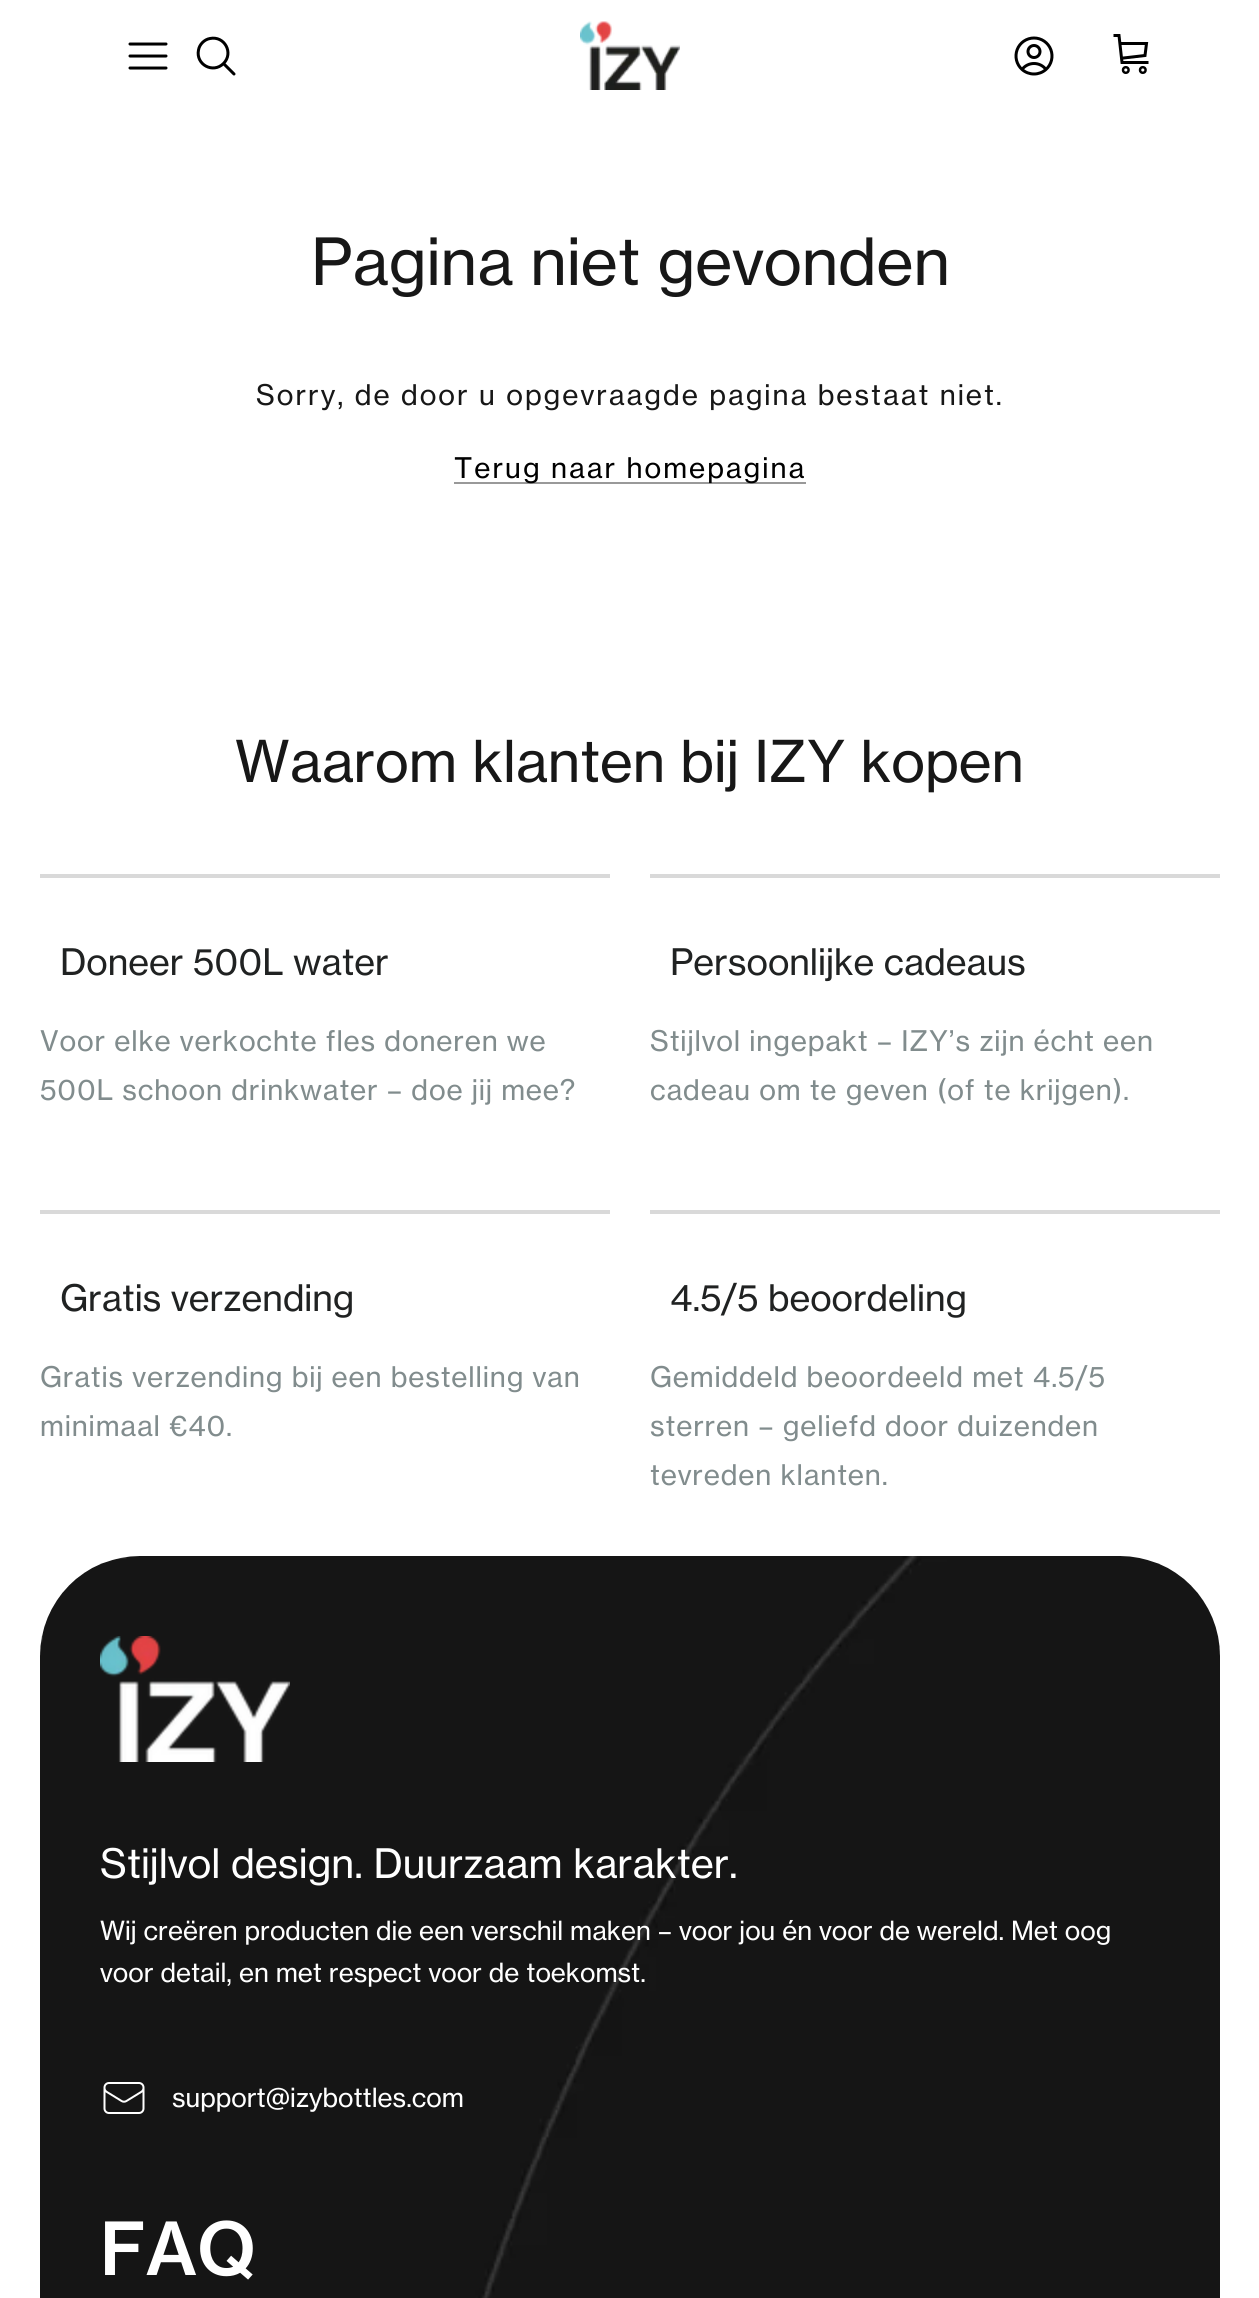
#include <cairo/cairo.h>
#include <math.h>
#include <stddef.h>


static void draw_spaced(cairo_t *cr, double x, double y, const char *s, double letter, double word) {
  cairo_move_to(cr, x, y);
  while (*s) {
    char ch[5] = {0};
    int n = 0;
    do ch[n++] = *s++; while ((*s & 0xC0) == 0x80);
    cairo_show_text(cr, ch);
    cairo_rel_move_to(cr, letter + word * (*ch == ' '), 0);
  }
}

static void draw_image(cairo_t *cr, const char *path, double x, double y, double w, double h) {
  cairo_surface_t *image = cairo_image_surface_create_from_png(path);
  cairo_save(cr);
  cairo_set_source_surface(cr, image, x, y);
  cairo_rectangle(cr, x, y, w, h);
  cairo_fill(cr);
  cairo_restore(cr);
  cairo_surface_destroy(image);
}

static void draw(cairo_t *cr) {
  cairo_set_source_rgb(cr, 1, 1, 1);
  cairo_paint(cr);
  cairo_new_path(cr);
  cairo_move_to(cr, 130, 56);
  cairo_line_to(cr, 166, 56);
  cairo_move_to(cr, 130, 44);
  cairo_line_to(cr, 166, 44);
  cairo_move_to(cr, 130, 68);
  cairo_line_to(cr, 166, 68);
  cairo_set_source_rgb(cr, 0, 0, 0);
  cairo_set_line_width(cr, 3);
  cairo_set_line_cap(cr, CAIRO_LINE_CAP_ROUND);
  cairo_set_line_join(cr, CAIRO_LINE_JOIN_ROUND);
  cairo_stroke(cr);
  cairo_new_path(cr);
  cairo_move_to(cr, 234, 74);
  cairo_line_to(cr, 223.5, 63.5);
  cairo_move_to(cr, 223.5, 63.5);
  cairo_curve_to(cr, 234, 53, 224.5, 35.5, 210, 38.5);
  cairo_curve_to(cr, 207, 39, 204.5, 40.5, 202.5, 42.5);
  cairo_curve_to(cr, 200.5, 44.5, 199, 47, 198.5, 50);
  cairo_curve_to(cr, 195.5, 64.5, 213, 74, 223.5, 63.5);
  cairo_close_path(cr);
  cairo_stroke(cr);
  draw_image(cr, "images/1.png", 580, 21, 100, 69);
  draw_image(cr, "images/2.png", 1014, 36, 40, 40);
  cairo_new_path(cr);
  cairo_move_to(cr, 1115, 35.5);
  cairo_line_to(cr, 1119, 35.5);
  cairo_line_to(cr, 1122, 62.5);
  cairo_line_to(cr, 1147, 62.5);
  cairo_move_to(cr, 1120.5, 43.5);
  cairo_line_to(cr, 1146.5, 43.5);
  cairo_line_to(cr, 1145, 55.5);
  cairo_line_to(cr, 1123.5, 58);
  cairo_set_line_cap(cr, CAIRO_LINE_CAP_SQUARE);
  cairo_set_line_join(cr, CAIRO_LINE_JOIN_MITER);
  cairo_stroke(cr);
  cairo_arc(cr, 1125.8, 70, 2.8, 0, 2 * M_PI);
  cairo_set_line_width(cr, 2.5);
  cairo_set_line_cap(cr, CAIRO_LINE_CAP_BUTT);
  cairo_stroke(cr);
  cairo_arc(cr, 1142.8, 70, 2.8, 0, 2 * M_PI);
  cairo_stroke(cr);
  cairo_set_source_rgb(cr, 153 / 255.0, 153 / 255.0, 153 / 255.0);
  cairo_rectangle(cr, 454, 482, 352, 2);
  cairo_fill(cr);
  cairo_set_source_rgb(cr, 217 / 255.0, 217 / 255.0, 217 / 255.0);
  cairo_rectangle(cr, 40, 874, 570, 4);
  cairo_fill(cr);
  cairo_rectangle(cr, 650, 874, 570, 4);
  cairo_fill(cr);
  cairo_rectangle(cr, 40, 1210, 570, 4);
  cairo_fill(cr);
  cairo_rectangle(cr, 650, 1210, 570, 4);
  cairo_fill(cr);
  draw_image(cr, "images/3.png", 40, 1556, 1180, 742);
  draw_image(cr, "images/4.png", 100, 1636, 190, 126);
  draw_image(cr, "images/5.png", 103, 2082, 42, 32);
  cairo_select_font_face(cr, "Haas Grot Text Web", CAIRO_FONT_SLANT_NORMAL, CAIRO_FONT_WEIGHT_NORMAL);
  cairo_set_font_size(cr, 64);
  cairo_set_source_rgb(cr, 23 / 255.0, 23 / 255.0, 23 / 255.0);
  cairo_move_to(cr, 311, 285);
  cairo_show_text(cr, "Pagina niet gevonden");
  cairo_set_font_size(cr, 28);
  draw_spaced(cr, 256, 405, "Sorry, de door u opgevraagde pagina bestaat niet.", 2, 0);
  cairo_set_source_rgb(cr, 0, 0, 0);
  draw_spaced(cr, 454, 478, "Terug naar homepagina", 2, 0);
  cairo_set_font_size(cr, 56.75);
  cairo_set_source_rgb(cr, 23 / 255.0, 23 / 255.0, 23 / 255.0);
  cairo_move_to(cr, 235, 782);
  cairo_show_text(cr, "Waarom klanten bij IZY kopen");
  cairo_set_font_size(cr, 36);
  cairo_set_source_rgb(cr, 32 / 255.0, 34 / 255.0, 34 / 255.0);
  cairo_move_to(cr, 60, 975);
  cairo_show_text(cr, "Doneer 500L water");
  cairo_set_font_size(cr, 28);
  cairo_set_source_rgb(cr, 129 / 255.0, 140 / 255.0, 141 / 255.0);
  draw_spaced(cr, 40, 1051, "Voor elke verkochte fles doneren we", 0.85, 0);
  draw_spaced(cr, 40, 1100, "500L schoon drinkwater – doe jij mee?", 0.85, 0);
  cairo_set_font_size(cr, 36);
  cairo_set_source_rgb(cr, 32 / 255.0, 34 / 255.0, 34 / 255.0);
  cairo_move_to(cr, 670, 975);
  cairo_show_text(cr, "Persoonlijke cadeaus");
  cairo_set_font_size(cr, 28);
  cairo_set_source_rgb(cr, 129 / 255.0, 140 / 255.0, 141 / 255.0);
  draw_spaced(cr, 650, 1051, "Stijlvol ingepakt – IZY’s zijn écht een", 0.85, 0);
  draw_spaced(cr, 650, 1100, "cadeau om te geven (of te krijgen).", 0.85, 0);
  cairo_set_font_size(cr, 36);
  cairo_set_source_rgb(cr, 32 / 255.0, 34 / 255.0, 34 / 255.0);
  cairo_move_to(cr, 60, 1311);
  cairo_show_text(cr, "Gratis verzending");
  cairo_set_font_size(cr, 28);
  cairo_set_source_rgb(cr, 129 / 255.0, 140 / 255.0, 141 / 255.0);
  draw_spaced(cr, 40, 1387, "Gratis verzending bij een bestelling van", 0.85, 0);
  draw_spaced(cr, 40, 1436, "minimaal €40.", 0.85, 0);
  cairo_set_font_size(cr, 36);
  cairo_set_source_rgb(cr, 32 / 255.0, 34 / 255.0, 34 / 255.0);
  cairo_move_to(cr, 670, 1311);
  cairo_show_text(cr, "4.5/5 beoordeling");
  cairo_set_font_size(cr, 28);
  cairo_set_source_rgb(cr, 129 / 255.0, 140 / 255.0, 141 / 255.0);
  draw_spaced(cr, 650, 1387, "Gemiddeld beoordeeld met 4.5/5", 0.85, 0);
  draw_spaced(cr, 650, 1436, "sterren – geliefd door duizenden", 0.85, 0);
  draw_spaced(cr, 650, 1485, "tevreden klanten.", 0.85, 0);
  cairo_set_font_size(cr, 40);
  cairo_set_source_rgb(cr, 1, 1, 1);
  cairo_move_to(cr, 100, 1878);
  cairo_show_text(cr, "Stijlvol design. Duurzaam karakter.");
  cairo_set_font_size(cr, 26);
  cairo_move_to(cr, 100, 1940);
  cairo_show_text(cr, "Wij creëren producten die een verschil maken – voor jou én voor de wereld. Met oog");
  cairo_move_to(cr, 100, 1982);
  cairo_show_text(cr, "voor detail, en met respect voor de toekomst.");
  cairo_move_to(cr, 172, 2107);
  cairo_show_text(cr, "support@izybottles.com");
  cairo_select_font_face(cr, "Haas Grot Text Web Medium", CAIRO_FONT_SLANT_NORMAL, CAIRO_FONT_WEIGHT_NORMAL);
  cairo_set_font_size(cr, 72);
  cairo_move_to(cr, 100, 2275);
  cairo_show_text(cr, "FAQ");
}

int main(void) {
  cairo_surface_t *surface = cairo_image_surface_create(CAIRO_FORMAT_RGB24, 1259, 2298);
  cairo_t *cr = cairo_create(surface);
  cairo_font_options_t *options = cairo_font_options_create();
  cairo_font_options_set_hint_metrics(options, CAIRO_HINT_METRICS_OFF);
  cairo_font_options_set_hint_style(options, CAIRO_HINT_STYLE_NONE);
  cairo_set_font_options(cr, options);
  cairo_set_miter_limit(cr, 4);
  draw(cr);
  cairo_surface_write_to_png(surface, "out.png");
  cairo_font_options_destroy(options);
  cairo_destroy(cr);
  cairo_surface_destroy(surface);
  return 0;
}
